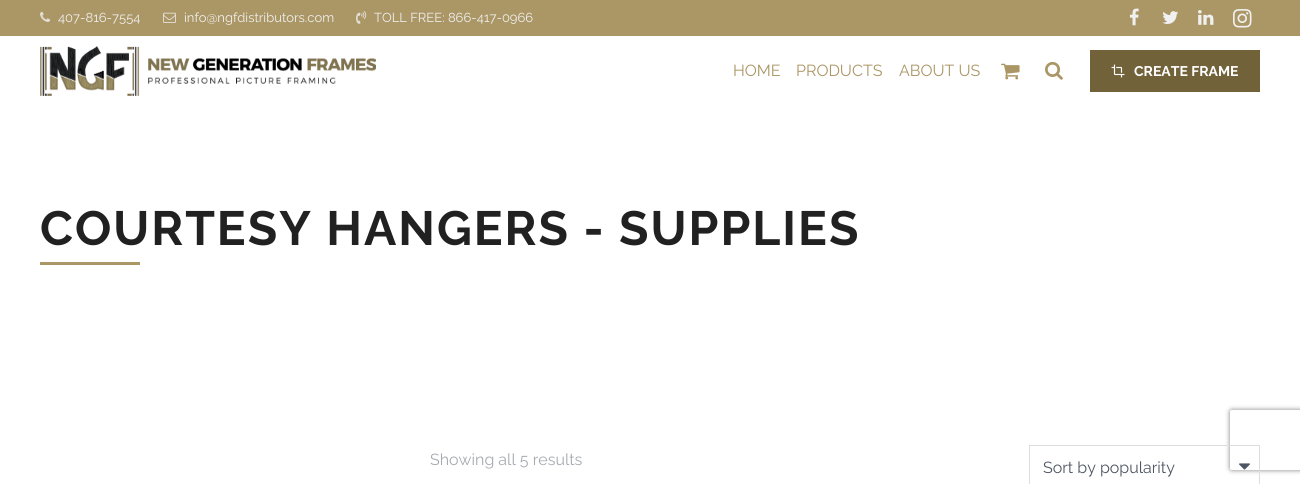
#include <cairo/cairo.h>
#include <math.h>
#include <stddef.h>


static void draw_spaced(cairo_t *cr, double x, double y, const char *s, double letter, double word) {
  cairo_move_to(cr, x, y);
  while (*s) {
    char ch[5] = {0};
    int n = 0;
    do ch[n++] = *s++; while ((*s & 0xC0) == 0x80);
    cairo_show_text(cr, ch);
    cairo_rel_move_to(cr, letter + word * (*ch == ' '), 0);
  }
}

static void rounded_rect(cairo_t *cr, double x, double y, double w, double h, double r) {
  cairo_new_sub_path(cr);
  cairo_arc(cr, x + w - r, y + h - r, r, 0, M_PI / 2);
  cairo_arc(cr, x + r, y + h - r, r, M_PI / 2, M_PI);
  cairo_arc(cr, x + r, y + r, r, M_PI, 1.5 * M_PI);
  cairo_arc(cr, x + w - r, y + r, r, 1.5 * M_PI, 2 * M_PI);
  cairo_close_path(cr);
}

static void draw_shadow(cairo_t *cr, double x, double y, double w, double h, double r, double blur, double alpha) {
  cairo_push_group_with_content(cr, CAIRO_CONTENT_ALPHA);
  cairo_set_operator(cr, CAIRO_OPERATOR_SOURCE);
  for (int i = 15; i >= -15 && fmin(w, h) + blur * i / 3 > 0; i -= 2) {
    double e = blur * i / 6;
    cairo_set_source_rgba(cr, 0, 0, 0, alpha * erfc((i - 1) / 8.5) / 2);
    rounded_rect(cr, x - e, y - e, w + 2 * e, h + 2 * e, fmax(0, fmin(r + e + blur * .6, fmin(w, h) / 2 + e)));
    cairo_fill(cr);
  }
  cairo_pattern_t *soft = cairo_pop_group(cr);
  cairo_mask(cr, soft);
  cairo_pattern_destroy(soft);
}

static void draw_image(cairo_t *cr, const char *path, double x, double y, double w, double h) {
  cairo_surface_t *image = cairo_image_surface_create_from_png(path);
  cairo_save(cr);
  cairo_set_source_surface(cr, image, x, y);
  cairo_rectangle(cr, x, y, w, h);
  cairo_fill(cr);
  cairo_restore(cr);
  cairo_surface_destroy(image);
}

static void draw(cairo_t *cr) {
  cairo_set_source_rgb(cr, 1, 1, 1);
  cairo_paint(cr);
  cairo_set_source_rgb(cr, 171 / 255.0, 150 / 255.0, 101 / 255.0);
  cairo_rectangle(cr, 0, 0, 1300, 36);
  cairo_fill(cr);
  draw_image(cr, "images/1.png", 40, 11, 11, 11);
  draw_image(cr, "images/2.png", 163, 12, 13, 11);
  draw_image(cr, "images/3.png", 356, 11, 11, 13);
  draw_image(cr, "images/4.png", 1129, 8, 10, 18);
  draw_image(cr, "images/5.png", 1162, 11, 17, 13);
  draw_image(cr, "images/6.png", 1198, 10, 16, 15);
  draw_image(cr, "images/7.png", 1233, 9, 19, 19);
  draw_image(cr, "images/8.png", 40, 46, 336, 50);
  draw_image(cr, "images/9.png", 1001, 63, 19, 17);
  draw_image(cr, "images/10.png", 1045, 61, 18, 19);
  cairo_set_source_rgb(cr, 114 / 255.0, 98 / 255.0, 58 / 255.0);
  cairo_rectangle(cr, 1090, 50, 170, 42);
  cairo_fill(cr);
  draw_image(cr, "images/11.png", 1111, 64, 14, 14);
  cairo_set_source_rgb(cr, 171 / 255.0, 150 / 255.0, 101 / 255.0);
  cairo_rectangle(cr, 40, 262, 100, 3);
  cairo_fill(cr);
  cairo_save(cr);
  cairo_set_fill_rule(cr, CAIRO_FILL_RULE_EVEN_ODD);
  cairo_new_path(cr);
  cairo_move_to(cr, 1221, 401);
  cairo_line_to(cr, 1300, 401);
  cairo_line_to(cr, 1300, 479);
  cairo_line_to(cr, 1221, 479);
  cairo_close_path(cr);
  cairo_move_to(cr, 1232, 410);
  cairo_line_to(cr, 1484, 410);
  cairo_curve_to(cr, 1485, 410, 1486, 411, 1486, 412);
  cairo_line_to(cr, 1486, 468);
  cairo_curve_to(cr, 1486, 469, 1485, 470, 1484, 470);
  cairo_line_to(cr, 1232, 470);
  cairo_curve_to(cr, 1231, 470, 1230, 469, 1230, 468);
  cairo_line_to(cr, 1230, 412);
  cairo_curve_to(cr, 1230, 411, 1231, 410, 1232, 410);
  cairo_close_path(cr);
  cairo_clip(cr);
  cairo_set_source_rgb(cr, 128 / 255.0, 128 / 255.0, 128 / 255.0);
  draw_shadow(cr, 1230, 410, 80, 60, 2, 2.5, 1);
  cairo_restore(cr);
  cairo_rectangle(cr, 1029.5, 445.5, 230, 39);
  cairo_set_source_rgb(cr, 221 / 255.0, 221 / 255.0, 221 / 255.0);
  cairo_set_line_width(cr, 1);
  cairo_stroke(cr);
  draw_image(cr, "images/12.png", 1239, 463, 11, 7);
  cairo_select_font_face(cr, "Raleway", CAIRO_FONT_SLANT_NORMAL, CAIRO_FONT_WEIGHT_NORMAL);
  cairo_set_font_size(cr, 13);
  cairo_set_source_rgb(cr, 240 / 255.0, 240 / 255.0, 240 / 255.0);
  cairo_move_to(cr, 58, 22);
  cairo_show_text(cr, "407-816-7554");
  cairo_move_to(cr, 184, 22);
  cairo_show_text(cr, "info@ngfdistributors.com");
  cairo_move_to(cr, 374, 22);
  cairo_show_text(cr, "TOLL FREE: 866-417-0966");
  cairo_set_font_size(cr, 16);
  cairo_set_source_rgb(cr, 171 / 255.0, 150 / 255.0, 101 / 255.0);
  cairo_move_to(cr, 733, 76);
  cairo_show_text(cr, "HOME");
  cairo_move_to(cr, 796, 76);
  cairo_show_text(cr, "PRODUCTS");
  cairo_move_to(cr, 899, 76);
  cairo_show_text(cr, "ABOUT US");
  cairo_select_font_face(cr, "Raleway", CAIRO_FONT_SLANT_NORMAL, CAIRO_FONT_WEIGHT_BOLD);
  cairo_set_font_size(cr, 14);
  cairo_set_source_rgb(cr, 1, 1, 1);
  cairo_move_to(cr, 1134, 76);
  cairo_show_text(cr, "CREATE FRAME");
  cairo_set_font_size(cr, 48);
  cairo_set_source_rgb(cr, 34 / 255.0, 33 / 255.0, 33 / 255.0);
  draw_spaced(cr, 40, 245, "COURTESY HANGERS - SUPPLIES", 2, 0);
  cairo_select_font_face(cr, "Raleway", CAIRO_FONT_SLANT_NORMAL, CAIRO_FONT_WEIGHT_NORMAL);
  cairo_set_font_size(cr, 16);
  cairo_set_source_rgb(cr, 167 / 255.0, 171 / 255.0, 177 / 255.0);
  cairo_move_to(cr, 430, 465);
  cairo_show_text(cr, "Showing all 5 results");
  cairo_set_source_rgb(cr, 78 / 255.0, 86 / 255.0, 99 / 255.0);
  cairo_move_to(cr, 1043, 473);
  cairo_show_text(cr, "Sort by popularity");
}

int main(void) {
  cairo_surface_t *surface = cairo_image_surface_create(CAIRO_FORMAT_RGB24, 1300, 484);
  cairo_t *cr = cairo_create(surface);
  cairo_font_options_t *options = cairo_font_options_create();
  cairo_font_options_set_hint_metrics(options, CAIRO_HINT_METRICS_OFF);
  cairo_font_options_set_hint_style(options, CAIRO_HINT_STYLE_NONE);
  cairo_set_font_options(cr, options);
  cairo_set_miter_limit(cr, 4);
  draw(cr);
  cairo_surface_write_to_png(surface, "out.png");
  cairo_font_options_destroy(options);
  cairo_destroy(cr);
  cairo_surface_destroy(surface);
  return 0;
}
